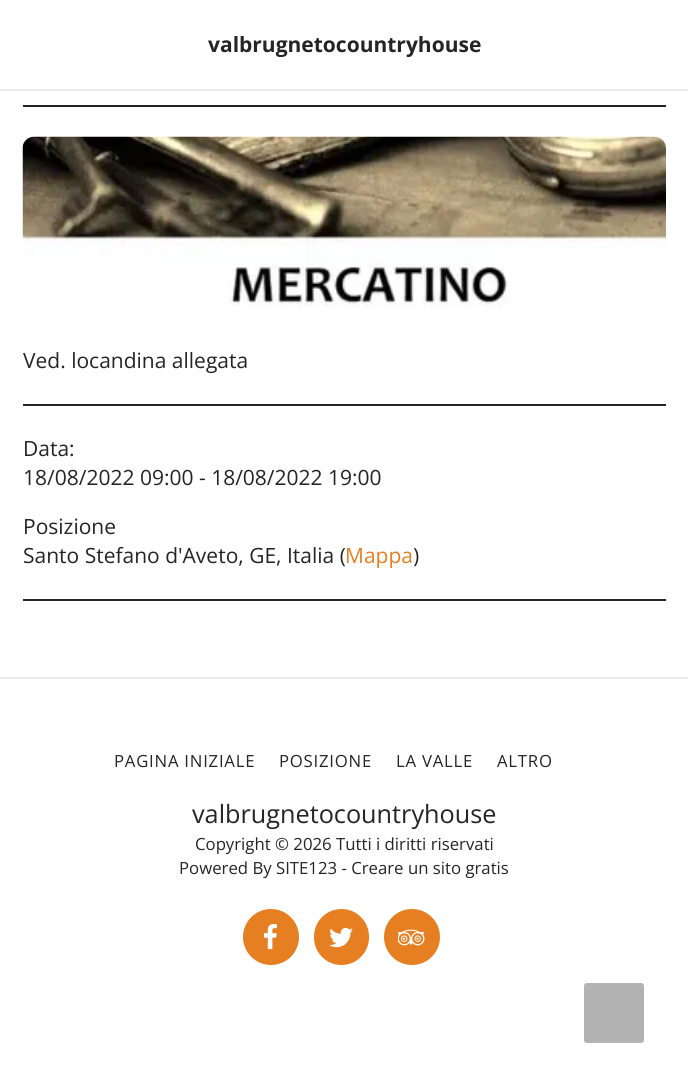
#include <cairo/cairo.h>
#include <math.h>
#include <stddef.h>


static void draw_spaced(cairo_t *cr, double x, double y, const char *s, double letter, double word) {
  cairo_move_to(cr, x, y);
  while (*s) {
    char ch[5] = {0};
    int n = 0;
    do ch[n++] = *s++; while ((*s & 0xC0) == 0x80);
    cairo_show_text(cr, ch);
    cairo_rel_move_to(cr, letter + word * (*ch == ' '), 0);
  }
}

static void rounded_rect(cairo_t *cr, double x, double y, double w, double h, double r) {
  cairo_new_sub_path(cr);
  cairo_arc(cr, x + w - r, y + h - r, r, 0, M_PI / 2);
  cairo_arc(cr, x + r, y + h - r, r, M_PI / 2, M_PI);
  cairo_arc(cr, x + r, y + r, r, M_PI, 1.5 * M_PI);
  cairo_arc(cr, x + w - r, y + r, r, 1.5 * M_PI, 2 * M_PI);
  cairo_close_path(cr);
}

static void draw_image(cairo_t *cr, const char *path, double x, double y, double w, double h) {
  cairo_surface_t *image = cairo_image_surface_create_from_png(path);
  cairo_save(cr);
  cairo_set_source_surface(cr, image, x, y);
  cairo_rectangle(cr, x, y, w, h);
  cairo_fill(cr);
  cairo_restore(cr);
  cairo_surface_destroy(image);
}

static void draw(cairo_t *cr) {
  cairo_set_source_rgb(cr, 1, 1, 1);
  cairo_paint(cr);
  cairo_set_source_rgb(cr, 235 / 255.0, 235 / 255.0, 235 / 255.0);
  cairo_rectangle(cr, 0, 89, 688, 2);
  cairo_fill(cr);
  cairo_set_source_rgb(cr, 37 / 255.0, 37 / 255.0, 37 / 255.0);
  cairo_rectangle(cr, 23, 105, 643, 2);
  cairo_fill(cr);
  draw_image(cr, "images/1.png", 22, 136, 644, 171);
  cairo_rectangle(cr, 23, 404, 643, 2);
  cairo_fill(cr);
  cairo_rectangle(cr, 23, 599, 643, 2);
  cairo_fill(cr);
  cairo_set_source_rgb(cr, 235 / 255.0, 235 / 255.0, 235 / 255.0);
  cairo_rectangle(cr, 0, 677, 688, 2);
  cairo_fill(cr);
  cairo_set_source_rgb(cr, 230 / 255.0, 126 / 255.0, 34 / 255.0);
  cairo_arc(cr, 271, 937, 27, 0, 2 * M_PI);
  cairo_fill_preserve(cr);
  cairo_stroke(cr);
  draw_image(cr, "images/2.png", 263, 924, 14, 26);
  rounded_rect(cr, 315, 910, 53, 54, 26.5);
  cairo_fill_preserve(cr);
  cairo_stroke(cr);
  draw_image(cr, "images/3.png", 329, 927, 24, 21);
  cairo_arc(cr, 412, 937, 27, 0, 2 * M_PI);
  cairo_fill_preserve(cr);
  cairo_stroke(cr);
  draw_image(cr, "images/4.png", 398, 929, 27, 17);
  cairo_set_source_rgb(cr, 179 / 255.0, 179 / 255.0, 179 / 255.0);
  rounded_rect(cr, 584, 983, 60, 60, 3);
  cairo_fill(cr);
  cairo_select_font_face(cr, "Open Sans", CAIRO_FONT_SLANT_NORMAL, CAIRO_FONT_WEIGHT_BOLD);
  cairo_set_font_size(cr, 21);
  cairo_set_source_rgb(cr, 37 / 255.0, 37 / 255.0, 37 / 255.0);
  cairo_move_to(cr, 208, 52);
  cairo_show_text(cr, "valbrugnetocountryhouse");
  cairo_select_font_face(cr, "Open Sans", CAIRO_FONT_SLANT_NORMAL, CAIRO_FONT_WEIGHT_NORMAL);
  cairo_move_to(cr, 23, 368);
  cairo_show_text(cr, "Ved. locandina allegata");
  cairo_move_to(cr, 23, 456);
  cairo_show_text(cr, "Data:");
  cairo_move_to(cr, 23, 485);
  cairo_show_text(cr, "18/08/2022 09:00 - 18/08/2022 19:00");
  cairo_move_to(cr, 23, 534);
  cairo_show_text(cr, "Posizione");
  cairo_move_to(cr, 23, 563);
  cairo_show_text(cr, "Santo Stefano d'Aveto, GE, Italia (");
  cairo_set_source_rgb(cr, 230 / 255.0, 126 / 255.0, 34 / 255.0);
  cairo_move_to(cr, 345, 563);
  cairo_show_text(cr, "Mappa");
  cairo_set_source_rgb(cr, 37 / 255.0, 37 / 255.0, 37 / 255.0);
  cairo_move_to(cr, 413, 563);
  cairo_show_text(cr, ")");
  cairo_set_font_size(cr, 16.75);
  draw_spaced(cr, 114, 767, "PAGINA INIZIALE", 0.75, 0);
  draw_spaced(cr, 279, 767, "POSIZIONE", 0.75, 0);
  draw_spaced(cr, 396, 767, "LA VALLE", 0.75, 0);
  draw_spaced(cr, 497, 767, "ALTRO", 0.75, 0);
  cairo_set_font_size(cr, 25.25);
  cairo_move_to(cr, 192, 823);
  cairo_show_text(cr, "valbrugnetocountryhouse");
  cairo_set_font_size(cr, 16.75);
  cairo_move_to(cr, 195, 850);
  cairo_show_text(cr, "Copyright © 2026 Tutti i diritti riservati");
  cairo_move_to(cr, 179, 874);
  cairo_show_text(cr, "Powered By SITE123 - Creare un sito gratis");
}

int main(void) {
  cairo_surface_t *surface = cairo_image_surface_create(CAIRO_FORMAT_RGB24, 688, 1087);
  cairo_t *cr = cairo_create(surface);
  cairo_font_options_t *options = cairo_font_options_create();
  cairo_font_options_set_hint_metrics(options, CAIRO_HINT_METRICS_OFF);
  cairo_font_options_set_hint_style(options, CAIRO_HINT_STYLE_NONE);
  cairo_set_font_options(cr, options);
  cairo_set_miter_limit(cr, 4);
  draw(cr);
  cairo_surface_write_to_png(surface, "out.png");
  cairo_font_options_destroy(options);
  cairo_destroy(cr);
  cairo_surface_destroy(surface);
  return 0;
}
